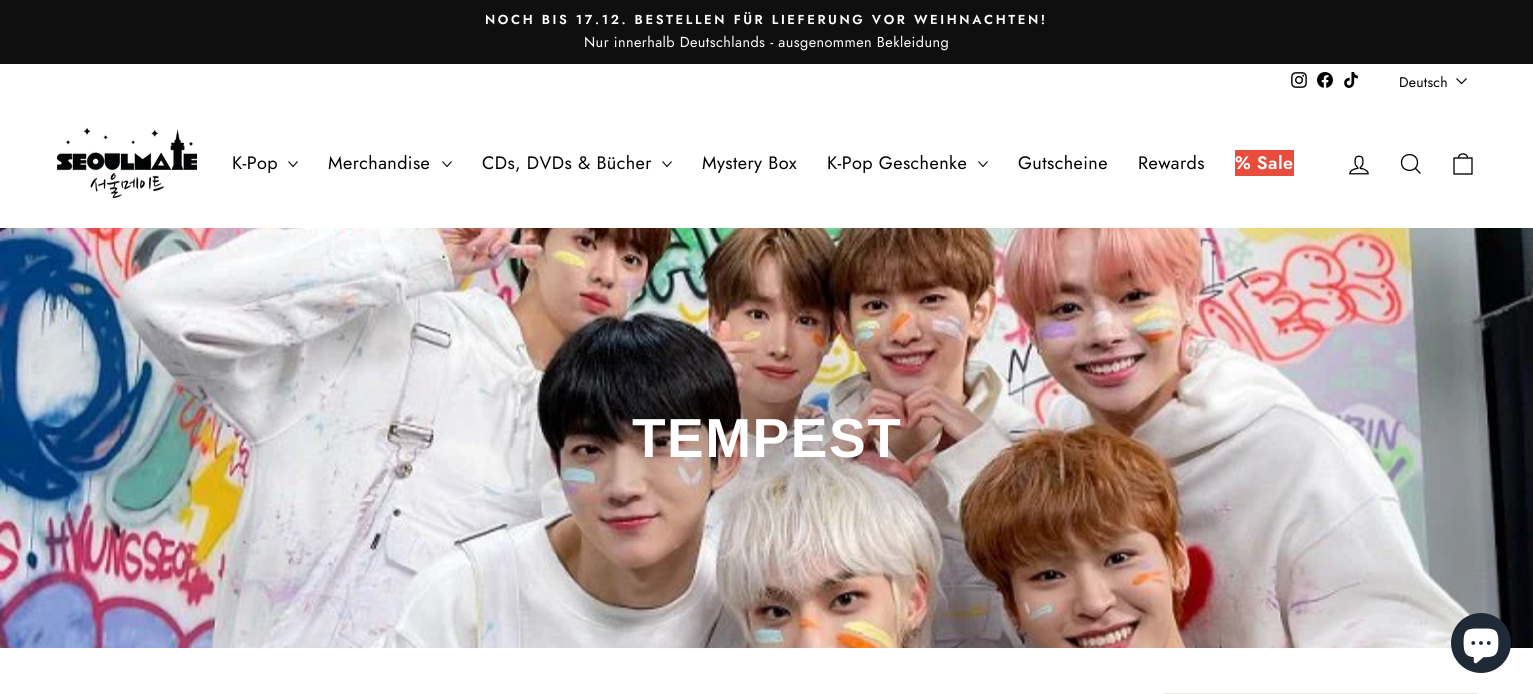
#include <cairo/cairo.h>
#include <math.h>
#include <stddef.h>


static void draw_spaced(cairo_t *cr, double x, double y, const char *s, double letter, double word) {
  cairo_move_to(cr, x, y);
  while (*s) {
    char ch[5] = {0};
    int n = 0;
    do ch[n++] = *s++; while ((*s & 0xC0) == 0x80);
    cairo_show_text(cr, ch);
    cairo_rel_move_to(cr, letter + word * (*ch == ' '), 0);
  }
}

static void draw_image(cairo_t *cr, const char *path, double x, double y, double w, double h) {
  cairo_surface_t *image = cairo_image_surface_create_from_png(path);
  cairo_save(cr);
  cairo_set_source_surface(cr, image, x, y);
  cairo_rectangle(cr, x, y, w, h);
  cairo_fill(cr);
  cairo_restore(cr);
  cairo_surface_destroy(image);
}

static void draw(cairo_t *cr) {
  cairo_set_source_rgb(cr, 1, 1, 1);
  cairo_paint(cr);
  cairo_set_source_rgb(cr, 15 / 255.0, 15 / 255.0, 15 / 255.0);
  cairo_rectangle(cr, 0, 0, 1533, 64);
  cairo_fill(cr);
  draw_image(cr, "images/1.png", 1291, 72, 16, 16);
  draw_image(cr, "images/2.png", 1317, 72, 16, 16);
  draw_image(cr, "images/3.png", 1344, 72, 14, 16);
  cairo_new_path(cr);
  cairo_move_to(cr, 1456.5, 78.5);
  cairo_line_to(cr, 1461.5, 83.5);
  cairo_line_to(cr, 1466.5, 78.5);
  cairo_set_source_rgb(cr, 0, 0, 0);
  cairo_set_line_width(cr, 1.2);
  cairo_stroke(cr);
  draw_image(cr, "images/4.png", 57, 127, 140, 71);
  cairo_new_path(cr);
  cairo_move_to(cr, 288.5, 161.5);
  cairo_line_to(cr, 293, 166.5);
  cairo_line_to(cr, 297.5, 161.5);
  cairo_set_line_width(cr, 1.1);
  cairo_stroke(cr);
  cairo_new_path(cr);
  cairo_move_to(cr, 442.5, 161.5);
  cairo_line_to(cr, 447, 166.5);
  cairo_line_to(cr, 451.5, 161.5);
  cairo_stroke(cr);
  cairo_new_path(cr);
  cairo_move_to(cr, 662.5, 161.5);
  cairo_line_to(cr, 667, 166.5);
  cairo_line_to(cr, 671.5, 161.5);
  cairo_stroke(cr);
  cairo_new_path(cr);
  cairo_move_to(cr, 978.5, 161.5);
  cairo_line_to(cr, 983, 166.5);
  cairo_line_to(cr, 987.5, 161.5);
  cairo_stroke(cr);
  cairo_set_source_rgb(cr, 231 / 255.0, 76 / 255.0, 60 / 255.0);
  cairo_rectangle(cr, 1235, 150, 59, 26);
  cairo_fill(cr);
  draw_image(cr, "images/5.png", 1349, 155, 20, 20);
  cairo_new_path(cr);
  cairo_move_to(cr, 1417.5, 162.5);
  cairo_curve_to(cr, 1417.5, 173, 1401.5, 173, 1401.5, 162.5);
  cairo_curve_to(cr, 1401.5, 152, 1417.5, 152, 1417.5, 162.5);
  cairo_close_path(cr);
  cairo_move_to(cr, 1420.5, 173.5);
  cairo_line_to(cr, 1415.5, 168.5);
  cairo_set_source_rgb(cr, 0, 0, 0);
  cairo_set_line_width(cr, 1.3);
  cairo_stroke(cr);
  cairo_new_path(cr);
  cairo_move_to(cr, 1454, 158);
  cairo_line_to(cr, 1472, 158);
  cairo_line_to(cr, 1472, 174);
  cairo_line_to(cr, 1454, 174);
  cairo_close_path(cr);
  cairo_move_to(cr, 1458.5, 158);
  cairo_curve_to(cr, 1458.5, 152.5, 1467.5, 152.5, 1467.5, 158);
  cairo_stroke(cr);
  draw_image(cr, "images/6.png", 0, 228, 1533, 420);
  cairo_rectangle(cr, 1164.5, 693.5, 312, 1);
  cairo_set_source_rgb(cr, 232 / 255.0, 232 / 255.0, 225 / 255.0);
  cairo_set_line_width(cr, 1);
  cairo_stroke(cr);
  cairo_set_source_rgb(cr, 32 / 255.0, 42 / 255.0, 54 / 255.0);
  cairo_arc(cr, 1481, 643, 30, 0, 2 * M_PI);
  cairo_fill(cr);
  draw_image(cr, "images/7.png", 1463, 628, 36, 36);
  cairo_select_font_face(cr, "Jost SemiBold", CAIRO_FONT_SLANT_NORMAL, CAIRO_FONT_WEIGHT_NORMAL);
  cairo_set_font_size(cr, 13);
  cairo_set_source_rgb(cr, 1, 1, 1);
  draw_spaced(cr, 485, 24, "NOCH BIS 17.12. BESTELLEN FÜR LIEFERUNG VOR WEIHNACHTEN!", 2.6, 0);
  cairo_select_font_face(cr, "Jost", CAIRO_FONT_SLANT_NORMAL, CAIRO_FONT_WEIGHT_NORMAL);
  cairo_set_font_size(cr, 14.45);
  draw_spaced(cr, 584, 47, "Nur innerhalb Deutschlands - ausgenommen Bekleidung", 0.42, 0);
  cairo_set_font_size(cr, 14);
  cairo_set_source_rgb(cr, 0, 0, 0);
  draw_spaced(cr, 1399, 87, "Deutsch", 0.25, 0);
  cairo_set_font_size(cr, 18);
  draw_spaced(cr, 232, 169, "K-Pop", 0.42, 0);
  draw_spaced(cr, 328, 169, "Merchandise", 0.42, 0);
  draw_spaced(cr, 482, 169, "CDs, DVDs & Bücher", 0.42, 0);
  draw_spaced(cr, 702, 169, "Mystery Box", 0.42, 0);
  draw_spaced(cr, 827, 169, "K-Pop Geschenke", 0.42, 0);
  draw_spaced(cr, 1018, 169, "Gutscheine", 0.42, 0);
  draw_spaced(cr, 1138, 169, "Rewards", 0.42, 0);
  cairo_select_font_face(cr, "Jost SemiBold", CAIRO_FONT_SLANT_NORMAL, CAIRO_FONT_WEIGHT_NORMAL);
  cairo_set_source_rgb(cr, 1, 1, 1);
  draw_spaced(cr, 1235, 169, "% Sale", 0.42, 0);
  cairo_select_font_face(cr, "Arimo", CAIRO_FONT_SLANT_NORMAL, CAIRO_FONT_WEIGHT_BOLD);
  cairo_set_font_size(cr, 55);
  draw_spaced(cr, 632, 457, "TEMPEST", 1.5, 0);
}

int main(void) {
  cairo_surface_t *surface = cairo_image_surface_create(CAIRO_FORMAT_RGB24, 1533, 694);
  cairo_t *cr = cairo_create(surface);
  cairo_font_options_t *options = cairo_font_options_create();
  cairo_font_options_set_hint_metrics(options, CAIRO_HINT_METRICS_OFF);
  cairo_font_options_set_hint_style(options, CAIRO_HINT_STYLE_NONE);
  cairo_set_font_options(cr, options);
  cairo_set_miter_limit(cr, 4);
  draw(cr);
  cairo_surface_write_to_png(surface, "out.png");
  cairo_font_options_destroy(options);
  cairo_destroy(cr);
  cairo_surface_destroy(surface);
  return 0;
}
